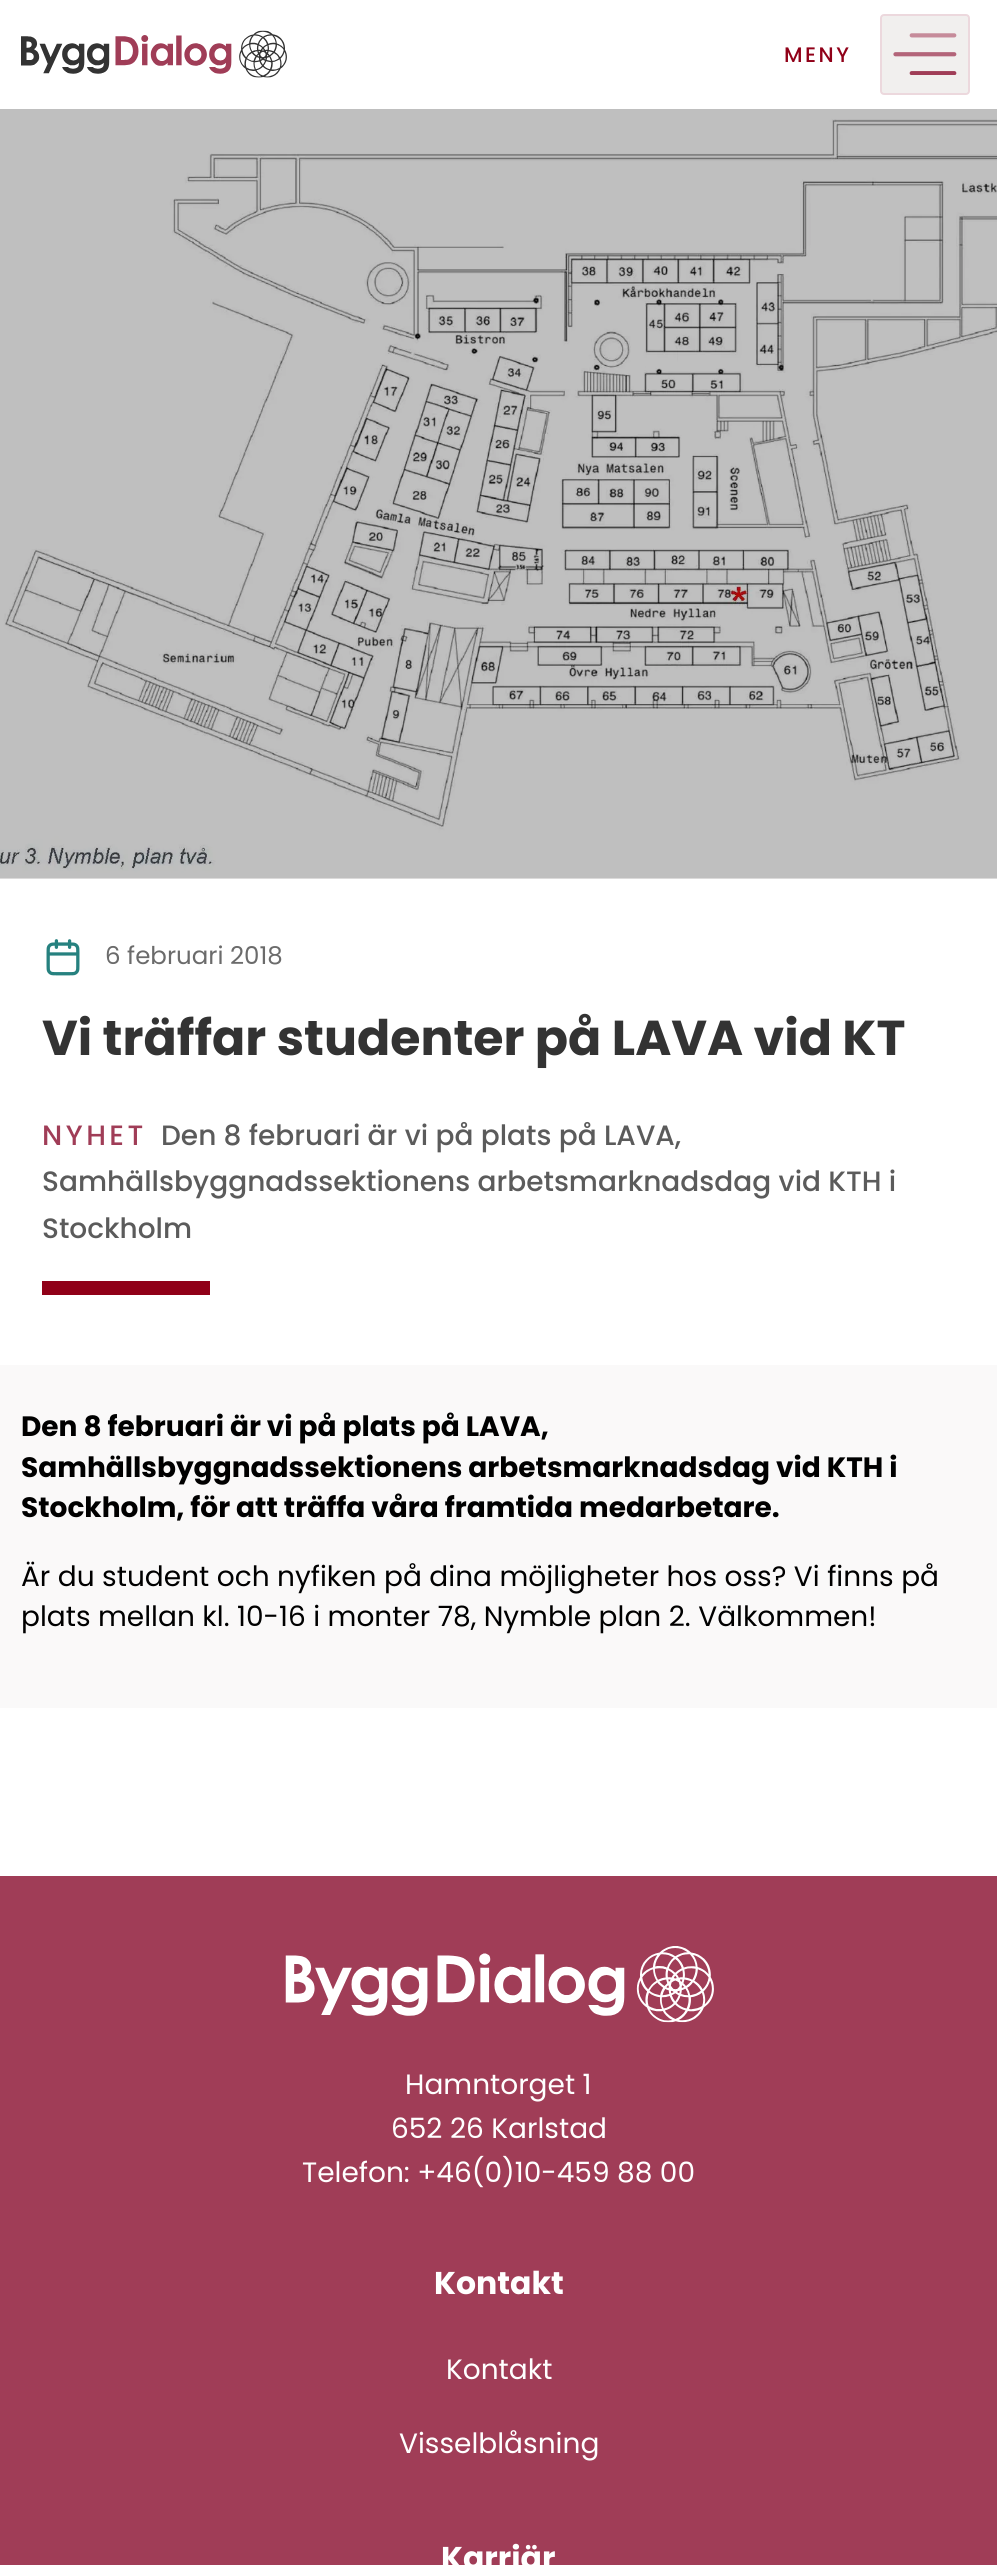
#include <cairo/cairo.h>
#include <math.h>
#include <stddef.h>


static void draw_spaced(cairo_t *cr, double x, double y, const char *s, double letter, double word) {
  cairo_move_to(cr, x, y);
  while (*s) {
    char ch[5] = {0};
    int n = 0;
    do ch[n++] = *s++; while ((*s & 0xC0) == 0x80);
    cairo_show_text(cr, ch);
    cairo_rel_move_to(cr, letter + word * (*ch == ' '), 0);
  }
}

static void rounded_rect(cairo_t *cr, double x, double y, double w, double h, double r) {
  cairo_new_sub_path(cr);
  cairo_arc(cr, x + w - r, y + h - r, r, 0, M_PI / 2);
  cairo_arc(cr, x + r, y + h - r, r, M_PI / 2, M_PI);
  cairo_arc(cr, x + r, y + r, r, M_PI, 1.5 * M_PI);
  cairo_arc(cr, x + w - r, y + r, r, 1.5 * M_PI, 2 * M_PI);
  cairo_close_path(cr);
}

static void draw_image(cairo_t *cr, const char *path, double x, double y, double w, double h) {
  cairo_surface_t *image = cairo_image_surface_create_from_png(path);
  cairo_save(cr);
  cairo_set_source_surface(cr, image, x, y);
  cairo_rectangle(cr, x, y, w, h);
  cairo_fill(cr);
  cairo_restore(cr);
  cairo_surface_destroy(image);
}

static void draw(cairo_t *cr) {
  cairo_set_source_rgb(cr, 1, 1, 1);
  cairo_paint(cr);
  draw_image(cr, "images/1.png", 21, 30, 266, 48);
  cairo_set_source_rgb(cr, 241 / 255.0, 239 / 255.0, 238 / 255.0);
  rounded_rect(cr, 881, 15, 88, 79, 3);
  cairo_fill_preserve(cr);
  cairo_set_source_rgb(cr, 236 / 255.0, 216 / 255.0, 221 / 255.0);
  cairo_stroke(cr);
  draw_image(cr, "images/2.png", 893, 33, 64, 42);
  cairo_set_source_rgb(cr, 247 / 255.0, 245 / 255.0, 245 / 255.0);
  cairo_rectangle(cr, 0, 878, 997, 1);
  cairo_fill(cr);
  draw_image(cr, "images/3.png", 0, 109, 997, 770);
  draw_image(cr, "images/4.png", 46, 939, 34, 37);
  cairo_set_source_rgb(cr, 144 / 255.0, 0, 24 / 255.0);
  cairo_rectangle(cr, 42, 1281, 168, 14);
  cairo_fill(cr);
  cairo_set_source_rgb(cr, 250 / 255.0, 249 / 255.0, 249 / 255.0);
  cairo_rectangle(cr, 0, 1365, 997, 343);
  cairo_fill(cr);
  cairo_set_source_rgb(cr, 160 / 255.0, 61 / 255.0, 87 / 255.0);
  cairo_rectangle(cr, 0, 1876, 997, 689);
  cairo_fill(cr);
  draw_image(cr, "images/5.png", 285, 1946, 429, 77);
  cairo_select_font_face(cr, "Poppins Medium", CAIRO_FONT_SLANT_NORMAL, CAIRO_FONT_WEIGHT_NORMAL);
  cairo_set_font_size(cr, 21);
  cairo_set_source_rgb(cr, 144 / 255.0, 0, 24 / 255.0);
  draw_spaced(cr, 784, 62, "MENY", 2.5, 0);
  cairo_select_font_face(cr, "Poppins", CAIRO_FONT_SLANT_NORMAL, CAIRO_FONT_WEIGHT_NORMAL);
  cairo_set_font_size(cr, 24.5);
  cairo_set_source_rgb(cr, 107 / 255.0, 107 / 255.0, 107 / 255.0);
  cairo_move_to(cr, 105, 964);
  cairo_show_text(cr, "6 februari 2018");
  cairo_select_font_face(cr, "Poppins", CAIRO_FONT_SLANT_NORMAL, CAIRO_FONT_WEIGHT_BOLD);
  cairo_set_font_size(cr, 49);
  cairo_set_source_rgb(cr, 51 / 255.0, 51 / 255.0, 51 / 255.0);
  cairo_move_to(cr, 42, 1055);
  cairo_show_text(cr, "Vi träffar studenter på LAVA vid KT");
  cairo_select_font_face(cr, "Poppins Medium", CAIRO_FONT_SLANT_NORMAL, CAIRO_FONT_WEIGHT_NORMAL);
  cairo_set_font_size(cr, 28);
  cairo_set_source_rgb(cr, 160 / 255.0, 61 / 255.0, 87 / 255.0);
  draw_spaced(cr, 42, 1145, "NYHET", 3.5, 0);
  cairo_set_source_rgb(cr, 91 / 255.0, 91 / 255.0, 91 / 255.0);
  cairo_move_to(cr, 161, 1145);
  cairo_show_text(cr, "Den 8 februari är vi på plats på LAVA,");
  cairo_move_to(cr, 42, 1191);
  cairo_show_text(cr, "Samhällsbyggnadssektionens arbetsmarknadsdag vid KTH i");
  cairo_move_to(cr, 42, 1238);
  cairo_show_text(cr, "Stockholm");
  cairo_select_font_face(cr, "Poppins", CAIRO_FONT_SLANT_NORMAL, CAIRO_FONT_WEIGHT_BOLD);
  cairo_set_source_rgb(cr, 0, 0, 0);
  cairo_move_to(cr, 21, 1436);
  cairo_show_text(cr, "Den 8 februari är vi på plats på LAVA,");
  cairo_move_to(cr, 21, 1477);
  cairo_show_text(cr, "Samhällsbyggnadssektionens arbetsmarknadsdag vid KTH i");
  cairo_move_to(cr, 21, 1517);
  cairo_show_text(cr, "Stockholm, för att träffa våra framtida medarbetare.");
  cairo_select_font_face(cr, "Poppins", CAIRO_FONT_SLANT_NORMAL, CAIRO_FONT_WEIGHT_NORMAL);
  cairo_move_to(cr, 21, 1586);
  cairo_show_text(cr, "Är du student och nyfiken på dina möjligheter hos oss? Vi finns på");
  cairo_move_to(cr, 21, 1626);
  cairo_show_text(cr, "plats mellan kl. 10-16 i monter 78, Nymble plan 2. Välkommen!");
  cairo_set_source_rgb(cr, 1, 1, 1);
  cairo_move_to(cr, 405, 2094);
  cairo_show_text(cr, "Hamntorget 1");
  cairo_move_to(cr, 391, 2138);
  cairo_show_text(cr, "652 26 Karlstad");
  cairo_move_to(cr, 302, 2182);
  cairo_show_text(cr, "Telefon: +46(0)10-459 88 00");
  cairo_select_font_face(cr, "Poppins", CAIRO_FONT_SLANT_NORMAL, CAIRO_FONT_WEIGHT_BOLD);
  cairo_set_font_size(cr, 31.5);
  cairo_move_to(cr, 434, 2294);
  cairo_show_text(cr, "Kontakt");
  cairo_select_font_face(cr, "Poppins", CAIRO_FONT_SLANT_NORMAL, CAIRO_FONT_WEIGHT_NORMAL);
  cairo_set_font_size(cr, 28);
  cairo_move_to(cr, 446, 2379);
  cairo_show_text(cr, "Kontakt");
  cairo_move_to(cr, 399, 2453);
  cairo_show_text(cr, "Visselblåsning");
  cairo_select_font_face(cr, "Poppins", CAIRO_FONT_SLANT_NORMAL, CAIRO_FONT_WEIGHT_BOLD);
  cairo_set_font_size(cr, 31.5);
  cairo_move_to(cr, 441, 2569);
  cairo_show_text(cr, "Karriär");
}

int main(void) {
  cairo_surface_t *surface = cairo_image_surface_create(CAIRO_FORMAT_RGB24, 997, 2565);
  cairo_t *cr = cairo_create(surface);
  cairo_font_options_t *options = cairo_font_options_create();
  cairo_font_options_set_hint_metrics(options, CAIRO_HINT_METRICS_OFF);
  cairo_font_options_set_hint_style(options, CAIRO_HINT_STYLE_NONE);
  cairo_set_font_options(cr, options);
  cairo_set_miter_limit(cr, 4);
  draw(cr);
  cairo_surface_write_to_png(surface, "out.png");
  cairo_font_options_destroy(options);
  cairo_destroy(cr);
  cairo_surface_destroy(surface);
  return 0;
}
